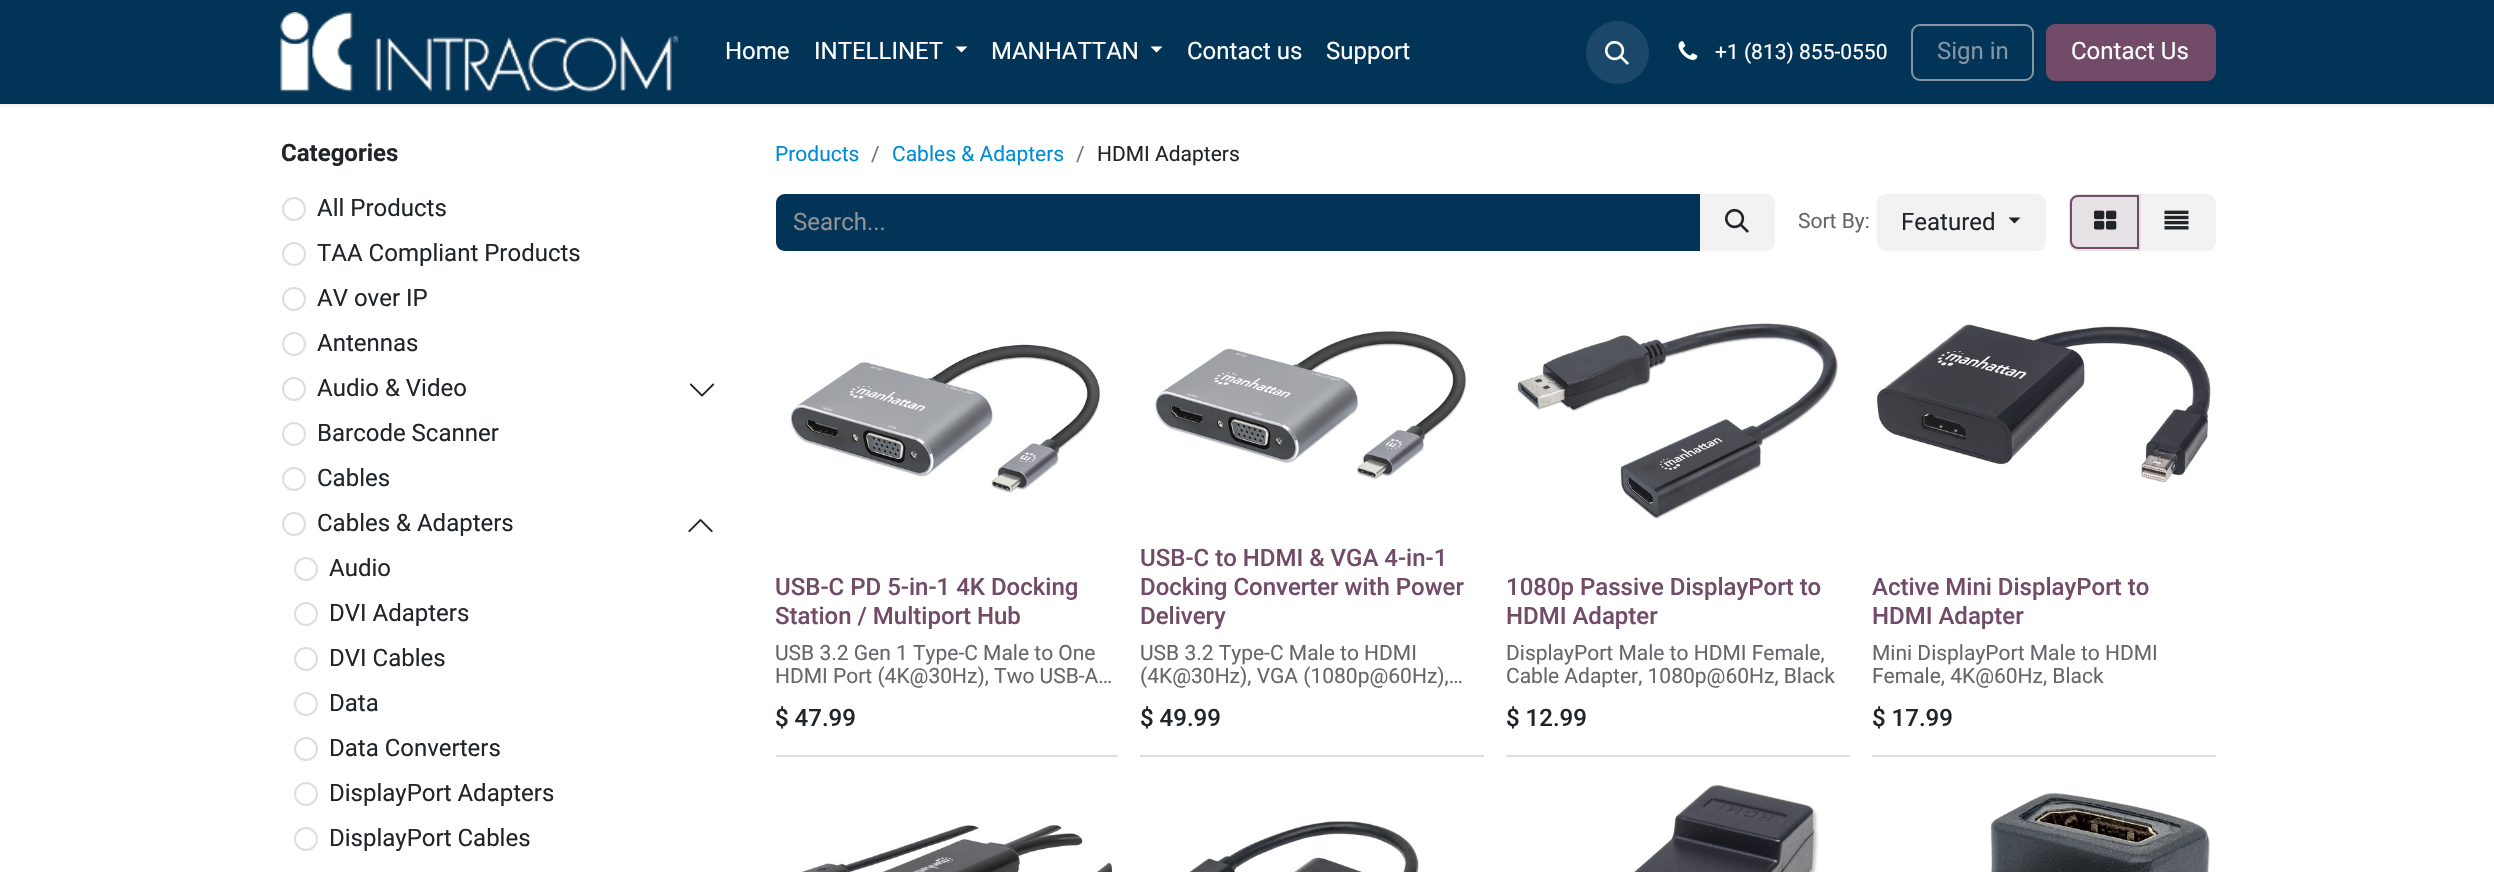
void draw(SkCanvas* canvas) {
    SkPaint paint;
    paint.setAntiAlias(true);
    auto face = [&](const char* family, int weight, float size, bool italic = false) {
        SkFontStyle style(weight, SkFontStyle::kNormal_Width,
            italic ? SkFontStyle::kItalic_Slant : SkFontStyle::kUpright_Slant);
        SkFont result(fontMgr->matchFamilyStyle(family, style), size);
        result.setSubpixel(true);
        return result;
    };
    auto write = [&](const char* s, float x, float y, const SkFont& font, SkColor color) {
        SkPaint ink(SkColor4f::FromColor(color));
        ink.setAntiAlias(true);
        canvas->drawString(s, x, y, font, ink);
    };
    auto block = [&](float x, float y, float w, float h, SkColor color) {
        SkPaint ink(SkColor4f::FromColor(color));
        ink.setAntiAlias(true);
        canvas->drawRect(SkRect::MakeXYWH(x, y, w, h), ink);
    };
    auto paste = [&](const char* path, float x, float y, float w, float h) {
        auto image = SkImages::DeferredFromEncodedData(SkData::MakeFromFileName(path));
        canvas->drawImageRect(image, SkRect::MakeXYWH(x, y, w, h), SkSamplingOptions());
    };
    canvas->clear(SK_ColorWHITE);
    paint.setColor(SkColorSetARGB(26, 0, 0, 0));
    paint.setMaskFilter(SkMaskFilter::MakeBlur(kNormal_SkBlurStyle, 2));
    canvas->drawRect(SkRect::MakeXYWH(0, 2, 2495, 103), paint);
    paint.setMaskFilter(nullptr);
    block(0, 0, 2494, 104, SkColorSetRGB(2, 52, 88));
    paste("pic1.png", 280, 12, 398, 80);
    auto kFont1 = face("Roboto", 400, 24);
    write("Home", 725, 59, kFont1, SK_ColorWHITE);
    write("INTELLINET", 814, 59, kFont1, SK_ColorWHITE);
    paint.setColor(SK_ColorWHITE);
    canvas->drawPath(SkPathBuilder().moveTo(955.5f, 46.5f).lineTo(967.5f, 46.5f).lineTo(961.5f, 52.5f).close().detach(), paint);
    write("MANHATTAN", 991, 59, kFont1, SK_ColorWHITE);
    canvas->drawPath(SkPathBuilder().moveTo(1150.5f, 46.5f).lineTo(1162.5f, 46.5f).lineTo(1156.5f, 52.5f).close().detach(), paint);
    write("Contact us", 1187, 59, kFont1, SK_ColorWHITE);
    write("Support", 1326, 59, kFont1, SK_ColorWHITE);
    paint.setColor(SkColorSetRGB(27, 72, 105));
    canvas->drawCircle(1617.5f, 52.5f, 31.5f, paint);
    paste("pic2.png", 1605, 40, 24, 25);
    paste("pic3.png", 1678, 41, 20, 19);
    auto kFont2 = face("Roboto", 400, 21);
    write("+1 (813) 855-0550", 1715, 59, kFont2, SK_ColorWHITE);
    paint.setStyle(SkPaint::kStroke_Style);
    paint.setStrokeWidth(2);
    paint.setColor(SkColorSetRGB(133, 149, 162));
    canvas->drawRoundRect(SkRect::MakeXYWH(1912, 25, 121, 55), 8, 8, paint);
    write("Sign in", 1937, 59, kFont1, SkColorSetRGB(133, 149, 162));
    paint.setStyle(SkPaint::kFill_Style);
    paint.setColor(SkColorSetRGB(113, 75, 103));
    canvas->drawRoundRect(SkRect::MakeXYWH(2047, 25, 168, 55), 8, 8, paint);
    paint.setStyle(SkPaint::kStroke_Style);
    canvas->drawRoundRect(SkRect::MakeXYWH(2047, 25, 168, 55), 8, 8, paint);
    write("Contact Us", 2071, 59, kFont1, SK_ColorWHITE);
    auto kFont3 = face("Roboto", 700, 24);
    write("Categories", 281, 161, kFont3, SkColorSetRGB(33, 37, 41));
    paint.setColor(SkColorSetRGB(222, 222, 223));
    canvas->drawCircle(294, 209, 11, paint);
    write("All Products", 317, 216, kFont1, SkColorSetRGB(33, 37, 41));
    canvas->drawCircle(294, 254, 11, paint);
    write("TAA Compliant Products", 317, 261, kFont1, SkColorSetRGB(33, 37, 41));
    canvas->drawCircle(294, 299, 11, paint);
    write("AV over IP", 317, 306, kFont1, SkColorSetRGB(33, 37, 41));
    canvas->drawCircle(294, 344, 11, paint);
    write("Antennas", 317, 351, kFont1, SkColorSetRGB(33, 37, 41));
    canvas->drawCircle(294, 389, 11, paint);
    write("Audio & Video", 317, 396, kFont1, SkColorSetRGB(33, 37, 41));
    paste("pic4.png", 689, 383, 26, 14);
    canvas->drawCircle(294, 434, 11, paint);
    write("Barcode Scanner", 317, 441, kFont1, SkColorSetRGB(33, 37, 41));
    canvas->drawCircle(294, 479, 11, paint);
    write("Cables", 317, 486, kFont1, SkColorSetRGB(33, 37, 41));
    canvas->drawCircle(294, 524, 11, paint);
    write("Cables & Adapters", 317, 531, kFont1, SkColorSetRGB(33, 37, 41));
    paste("pic5.png", 688, 519, 25, 14);
    canvas->drawCircle(306, 569, 11, paint);
    write("Audio", 329, 576, kFont1, SkColorSetRGB(33, 37, 41));
    canvas->drawCircle(306, 614, 11, paint);
    write("DVI Adapters", 329, 621, kFont1, SkColorSetRGB(33, 37, 41));
    canvas->drawCircle(306, 659, 11, paint);
    write("DVI Cables", 329, 666, kFont1, SkColorSetRGB(33, 37, 41));
    canvas->drawCircle(306, 704, 11, paint);
    write("Data", 329, 711, kFont1, SkColorSetRGB(33, 37, 41));
    canvas->drawCircle(306, 749, 11, paint);
    write("Data Converters", 329, 756, kFont1, SkColorSetRGB(33, 37, 41));
    canvas->drawCircle(306, 794, 11, paint);
    write("DisplayPort Adapters", 329, 801, kFont1, SkColorSetRGB(33, 37, 41));
    canvas->drawCircle(306, 839, 11, paint);
    write("DisplayPort Cables", 329, 846, kFont1, SkColorSetRGB(33, 37, 41));
    write("Products", 775, 161, kFont2, SkColorSetRGB(0, 139, 214));
    write("/", 871, 161, kFont2, SkColorSetRGB(108, 117, 125));
    write("Cables & Adapters", 892, 161, kFont2, SkColorSetRGB(0, 139, 214));
    write("/", 1076, 161, kFont2, SkColorSetRGB(108, 117, 125));
    write("HDMI Adapters", 1097, 161, kFont2, SkColorSetRGB(33, 37, 41));
    paint.setStyle(SkPaint::kFill_Style);
    paint.setColor(SkColorSetRGB(2, 52, 88));
    canvas->drawPath(SkPathBuilder().moveTo(785, 194).lineTo(1701, 194).lineTo(1701, 251).lineTo(785, 251).cubicTo(780, 251, 776, 247, 776, 242).lineTo(776, 203).cubicTo(776, 198, 780, 194, 785, 194).close().detach(), paint);
    write("Search...", 793, 230, kFont1, SkColorSetRGB(144, 146, 148));
    paint.setColor(SkColorSetRGB(243, 242, 242));
    canvas->drawPath(SkPathBuilder().moveTo(1701, 195).lineTo(1766, 195).cubicTo(1770.5f, 195, 1774, 198.5f, 1774, 203).lineTo(1774, 242).cubicTo(1774, 246.5f, 1770.5f, 250, 1766, 250).lineTo(1701, 250).close().detach(), paint);
    paint.setStyle(SkPaint::kStroke_Style);
    canvas->drawPath(SkPathBuilder().moveTo(1701, 195).lineTo(1766, 195).cubicTo(1770.5f, 195, 1774, 198.5f, 1774, 203).lineTo(1774, 242).cubicTo(1774, 246.5f, 1770.5f, 250, 1766, 250).lineTo(1701, 250).close().detach(), paint);
    paste("pic6.png", 1725, 208, 24, 25);
    write("Sort By:", 1798, 228, kFont2, SkColorSetRGB(100, 102, 105));
    paint.setStyle(SkPaint::kFill_Style);
    canvas->drawRoundRect(SkRect::MakeXYWH(1878, 195, 167, 55), 8, 8, paint);
    paint.setStyle(SkPaint::kStroke_Style);
    canvas->drawRoundRect(SkRect::MakeXYWH(1878, 195, 167, 55), 8, 8, paint);
    write("Featured", 1901, 230, kFont1, SkColorSetRGB(33, 37, 41));
    paint.setStyle(SkPaint::kFill_Style);
    paint.setColor(SkColorSetRGB(33, 37, 41));
    canvas->drawPath(SkPathBuilder().moveTo(2008.5f, 217.5f).lineTo(2020.5f, 217.5f).lineTo(2014.5f, 223.5f).close().detach(), paint);
    paint.setColor(SkColorSetRGB(243, 242, 242));
    canvas->drawPath(SkPathBuilder().moveTo(2140, 195).lineTo(2207, 195).cubicTo(2211.5f, 195, 2215, 198.5f, 2215, 203).lineTo(2215, 242).cubicTo(2215, 246.5f, 2211.5f, 250, 2207, 250).lineTo(2140, 250).close().detach(), paint);
    paint.setStyle(SkPaint::kStroke_Style);
    canvas->drawPath(SkPathBuilder().moveTo(2140, 195).lineTo(2207, 195).cubicTo(2211.5f, 195, 2215, 198.5f, 2215, 203).lineTo(2215, 242).cubicTo(2215, 246.5f, 2211.5f, 250, 2207, 250).lineTo(2140, 250).close().detach(), paint);
    paint.setStyle(SkPaint::kFill_Style);
    paint.setColor(SkColorSetRGB(230, 225, 228));
    canvas->drawPath(SkPathBuilder().moveTo(2078, 194).lineTo(2141, 194).lineTo(2141, 251).lineTo(2078, 251).cubicTo(2073, 251, 2069, 247, 2069, 242).lineTo(2069, 203).cubicTo(2069, 198, 2073, 194, 2078, 194).close().detach(), paint);
    paint.setStyle(SkPaint::kStroke_Style);
    paint.setColor(SkColorSetRGB(113, 75, 103));
    canvas->drawPath(SkPathBuilder().moveTo(2078, 196).lineTo(2138, 196).lineTo(2138, 248).lineTo(2078, 248).cubicTo(2074, 248, 2071, 245, 2071, 241).lineTo(2071, 203).cubicTo(2071, 199, 2074, 196, 2078, 196).close().detach(), paint);
    paste("pic7.png", 2094, 210, 23, 20);
    paste("pic8.png", 2164, 210, 25, 20);
    block(776, 755, 342, 2, SkColorSetRGB(222, 222, 223));
    paste("pic9.png", 790, 344, 311, 149);
    auto kFont4 = face("Roboto", 500, 24);
    write("USB-C PD 5-in-1 4K Docking", 775, 595, kFont4, SkColorSetRGB(113, 75, 103));
    write("Station / Multiport Hub", 775, 624, kFont4, SkColorSetRGB(113, 75, 103));
    write("USB 3.2 Gen 1 Type-C Male to One", 775, 660, kFont2, SkColorSetRGB(100, 102, 105));
    write("HDMI Port (4K@30Hz), Two USB-A…", 775, 683, kFont2, SkColorSetRGB(100, 102, 105));
    write("$ 47.99", 775, 726, kFont4, SkColorSetRGB(33, 37, 41));
    block(1140, 755, 344, 2, SkColorSetRGB(222, 222, 223));
    paste("pic10.png", 1155, 331, 312, 149);
    write("USB-C to HDMI & VGA 4-in-1", 1140, 566, kFont4, SkColorSetRGB(113, 75, 103));
    write("Docking Converter with Power", 1140, 595, kFont4, SkColorSetRGB(113, 75, 103));
    write("Delivery", 1140, 624, kFont4, SkColorSetRGB(113, 75, 103));
    write("USB 3.2 Type-C Male to HDMI", 1140, 660, kFont2, SkColorSetRGB(100, 102, 105));
    write("(4K@30Hz), VGA (1080p@60Hz),…", 1140, 683, kFont2, SkColorSetRGB(100, 102, 105));
    write("$ 49.99", 1140, 726, kFont4, SkColorSetRGB(33, 37, 41));
    block(1506, 755, 344, 2, SkColorSetRGB(222, 222, 223));
    paste("pic11.png", 1517, 322, 321, 197);
    write("1080p Passive DisplayPort to", 1506, 595, kFont4, SkColorSetRGB(113, 75, 103));
    write("HDMI Adapter", 1506, 624, kFont4, SkColorSetRGB(113, 75, 103));
    write("DisplayPort Male to HDMI Female,", 1506, 660, kFont2, SkColorSetRGB(100, 102, 105));
    write("Cable Adapter, 1080p@60Hz, Black", 1506, 683, kFont2, SkColorSetRGB(100, 102, 105));
    write("$ 12.99", 1506, 726, kFont4, SkColorSetRGB(33, 37, 41));
    block(1872, 755, 344, 2, SkColorSetRGB(222, 222, 223));
    paste("pic12.png", 1876, 324, 335, 159);
    write("Active Mini DisplayPort to", 1872, 595, kFont4, SkColorSetRGB(113, 75, 103));
    write("HDMI Adapter", 1872, 624, kFont4, SkColorSetRGB(113, 75, 103));
    write("Mini DisplayPort Male to HDMI", 1872, 660, kFont2, SkColorSetRGB(100, 102, 105));
    write("Female, 4K@60Hz, Black", 1872, 683, kFont2, SkColorSetRGB(100, 102, 105));
    write("$ 17.99", 1872, 726, kFont4, SkColorSetRGB(33, 37, 41));
    paste("pic13.png", 801, 824, 312, 48);
    paste("pic14.png", 1189, 821, 230, 51);
    paste("pic15.png", 1634, 784, 185, 88);
    paste("pic16.png", 1990, 792, 220, 80);
}
